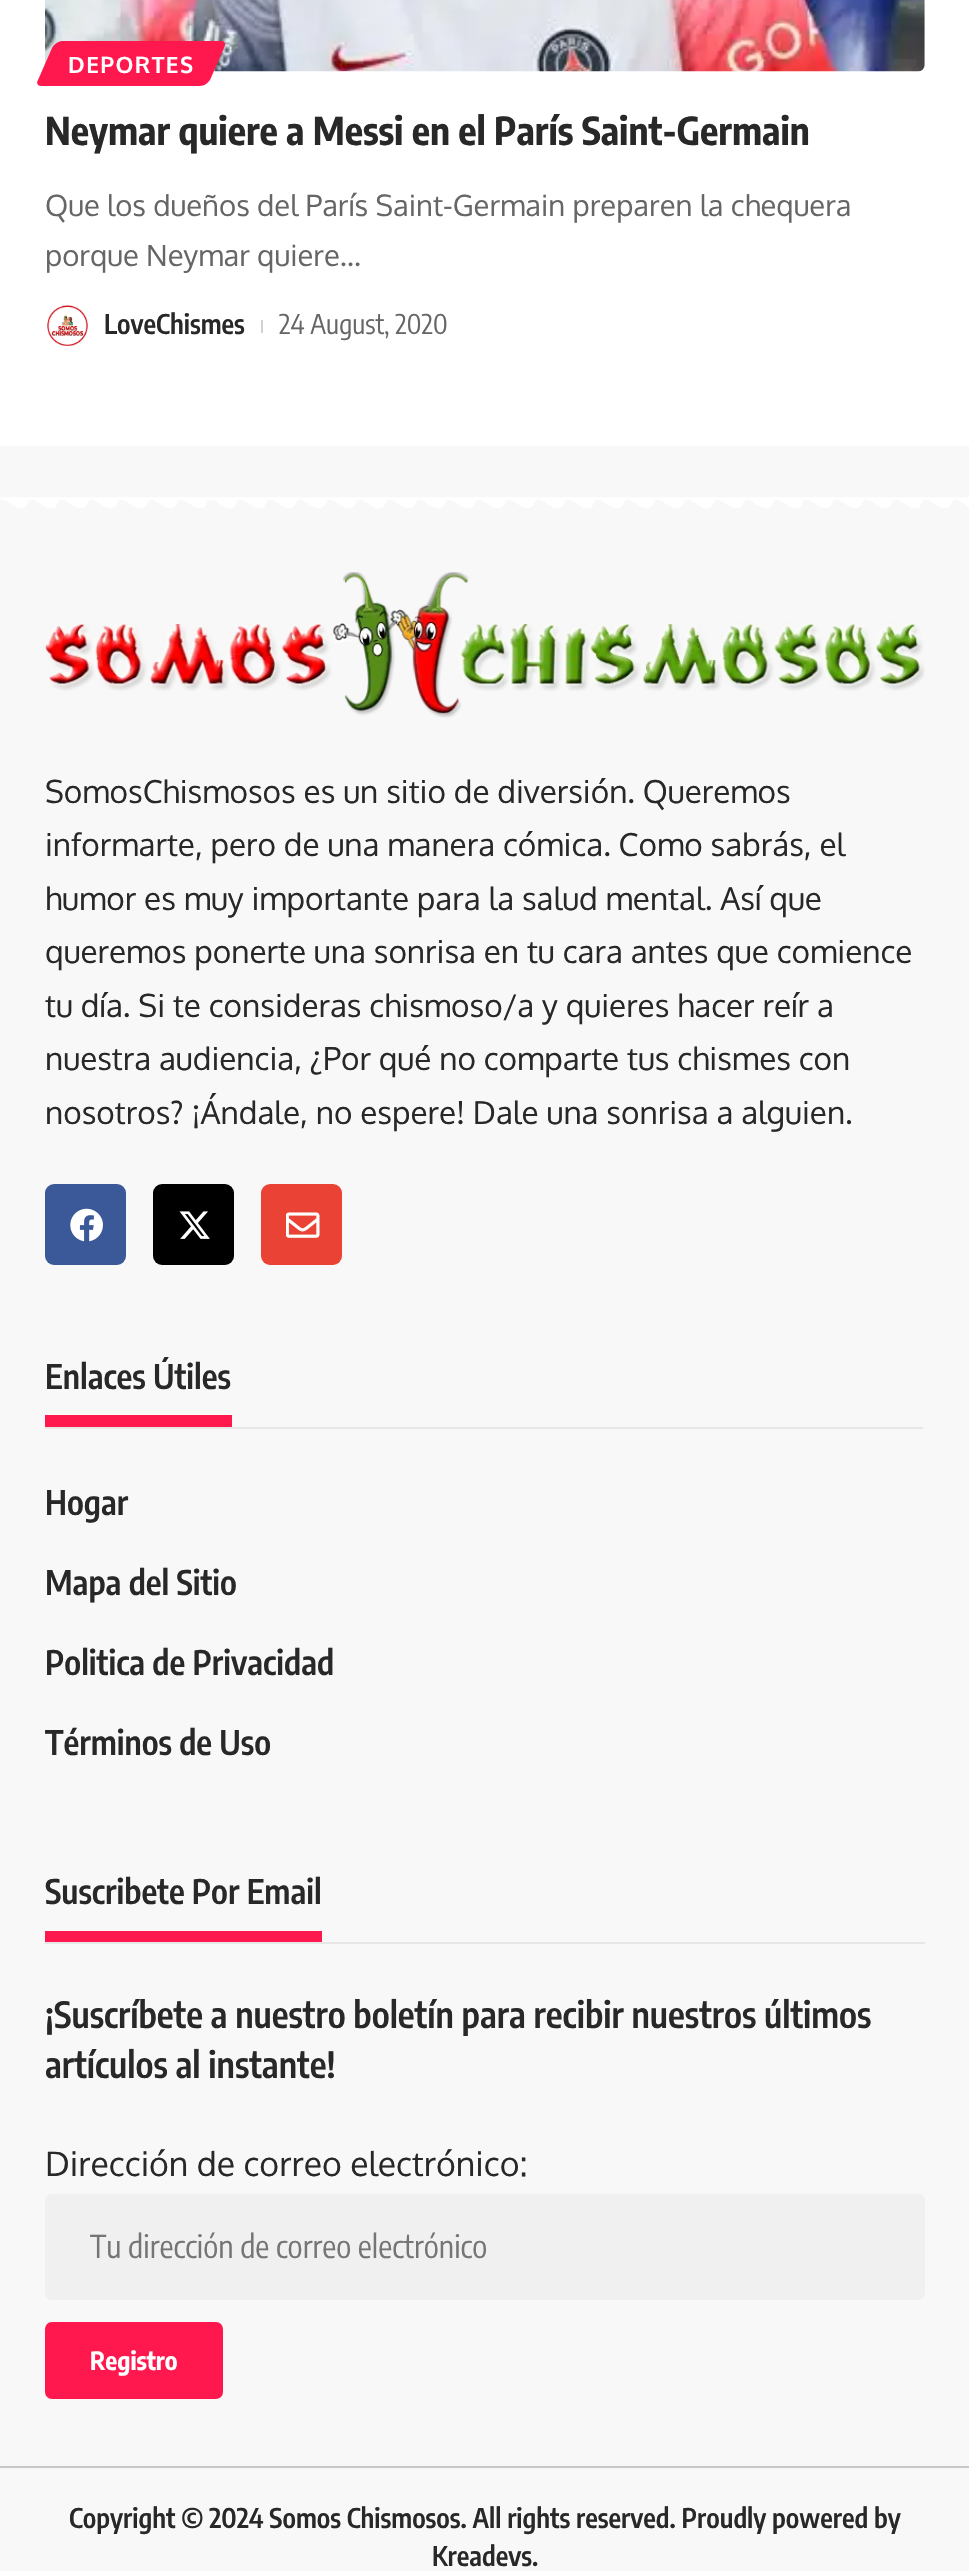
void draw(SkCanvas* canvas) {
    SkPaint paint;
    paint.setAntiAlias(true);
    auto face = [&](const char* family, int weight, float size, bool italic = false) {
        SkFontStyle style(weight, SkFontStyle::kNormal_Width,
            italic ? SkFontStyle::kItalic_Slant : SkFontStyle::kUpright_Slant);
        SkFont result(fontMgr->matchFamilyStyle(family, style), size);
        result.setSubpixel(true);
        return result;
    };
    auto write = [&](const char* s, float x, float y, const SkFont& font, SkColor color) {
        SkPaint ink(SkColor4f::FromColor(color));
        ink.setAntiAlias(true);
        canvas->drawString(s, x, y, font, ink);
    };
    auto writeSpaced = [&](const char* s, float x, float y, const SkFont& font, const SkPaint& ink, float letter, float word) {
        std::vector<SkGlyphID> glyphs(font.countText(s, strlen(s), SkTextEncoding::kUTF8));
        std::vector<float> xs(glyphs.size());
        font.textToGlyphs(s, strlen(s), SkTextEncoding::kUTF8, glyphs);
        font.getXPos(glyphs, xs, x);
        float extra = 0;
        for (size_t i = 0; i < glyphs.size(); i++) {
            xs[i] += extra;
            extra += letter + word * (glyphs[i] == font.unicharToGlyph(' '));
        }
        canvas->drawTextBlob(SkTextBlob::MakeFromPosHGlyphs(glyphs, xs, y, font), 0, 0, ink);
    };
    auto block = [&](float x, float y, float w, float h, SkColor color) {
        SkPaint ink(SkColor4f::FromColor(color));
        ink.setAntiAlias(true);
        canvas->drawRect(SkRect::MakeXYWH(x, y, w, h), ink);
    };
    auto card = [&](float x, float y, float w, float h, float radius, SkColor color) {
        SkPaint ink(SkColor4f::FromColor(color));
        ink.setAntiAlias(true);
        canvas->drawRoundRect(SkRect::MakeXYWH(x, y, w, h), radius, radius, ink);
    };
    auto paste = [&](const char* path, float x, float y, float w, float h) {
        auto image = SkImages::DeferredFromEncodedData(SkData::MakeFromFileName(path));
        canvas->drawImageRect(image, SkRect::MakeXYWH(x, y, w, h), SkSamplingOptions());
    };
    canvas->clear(SK_ColorWHITE);
    paste("pic1.png", 45, 0, 880, 72);
    paint.setColor(SkColorSetRGB(255, 24, 78));
    canvas->drawPath(SkPathBuilder().moveTo(62, 41).lineTo(221, 41).cubicTo(225, 41, 226, 44, 224, 48).lineTo(210, 80).cubicTo(208, 83, 204, 86, 200, 86).lineTo(41, 86).cubicTo(38, 86, 36, 83, 38, 80).lineTo(52, 48).cubicTo(54, 44, 59, 41, 62, 41).close().detach(), paint);
    auto kFont1 = face("Oxygen", 700, 22.5f);
    paint.setColor(SK_ColorWHITE);
    writeSpaced("DEPORTES", 68, 73, kFont1, paint, 1.5f, 0);
    auto kFont2 = face("Encode Sans Condensed", 700, 38.25f);
    write("Neymar quiere a Messi en el París Saint-Germain", 45, 145, kFont2, SkColorSetRGB(40, 40, 40));
    auto kFont3 = face("Oxygen", 400, 29.25f);
    write("Que los dueños del París Saint-Germain preparen la chequera", 45, 216, kFont3, SkColorSetRGB(102, 102, 102));
    write("porque Neymar quiere…", 45, 266, kFont3, SkColorSetRGB(102, 102, 102));
    paste("pic2.png", 47, 305, 41, 42);
    auto kFont4 = face("Encode Sans Condensed", 600, 27);
    write("LoveChismes", 104, 334, kFont4, SkColorSetRGB(40, 40, 40));
    block(261, 320, 2, 13, SkColorSetRGB(209, 209, 209));
    auto kFont5 = face("Encode Sans Condensed", 400, 27);
    write("24 August, 2020", 279, 334, kFont5, SkColorSetRGB(102, 102, 102));
    block(0, 446, 969, 2020, SkColorSetRGB(248, 248, 248));
    paste("pic3.png", 0, 497, 969, 11);
    paste("pic4.png", 45, 572, 880, 146);
    auto kFont6 = face("Oxygen", 400, 31.5f);
    write("SomosChismosos es un sitio de diversión. Queremos", 45, 803, kFont6, SkColorSetRGB(40, 40, 40));
    write("informarte, pero de una manera cómica. Como sabrás, el", 45, 856, kFont6, SkColorSetRGB(40, 40, 40));
    write("humor es muy importante para la salud mental. Así que", 45, 910, kFont6, SkColorSetRGB(40, 40, 40));
    write("queremos ponerte una sonrisa en tu cara antes que comience", 45, 963, kFont6, SkColorSetRGB(40, 40, 40));
    write("tu día. Si te consideras chismoso/a y quieres hacer reír a", 45, 1017, kFont6, SkColorSetRGB(40, 40, 40));
    write("nuestra audiencia, ¿Por qué no comparte tus chismes con", 45, 1070, kFont6, SkColorSetRGB(40, 40, 40));
    write("nosotros? ¡Ándale, no espere! Dale una sonrisa a alguien.", 45, 1124, kFont6, SkColorSetRGB(40, 40, 40));
    card(45, 1184, 81, 81, 9, SkColorSetRGB(59, 89, 152));
    paste("pic5.png", 70, 1208, 33, 34);
    card(153, 1184, 81, 81, 9, SK_ColorBLACK);
    paste("pic6.png", 179, 1211, 31, 28);
    card(261, 1184, 81, 81, 9, SkColorSetRGB(234, 67, 53));
    paste("pic7.png", 286, 1212, 34, 26);
    block(45, 1427, 878, 2, SkColorSetRGB(231, 231, 231));
    block(45, 1415, 187, 12, SkColorSetRGB(255, 24, 78));
    auto kFont7 = face("Encode Sans Condensed", 600, 33.75f);
    write("Enlaces Útiles", 45, 1389, kFont7, SkColorSetRGB(40, 40, 40));
    write("Hogar", 45, 1515, kFont7, SkColorSetRGB(40, 40, 40));
    write("Mapa del Sitio", 45, 1595, kFont7, SkColorSetRGB(40, 40, 40));
    write("Politica de Privacidad", 45, 1675, kFont7, SkColorSetRGB(40, 40, 40));
    write("Términos de Uso", 45, 1755, kFont7, SkColorSetRGB(40, 40, 40));
    block(45, 1942, 880, 2, SkColorSetRGB(231, 231, 231));
    block(45, 1931, 277, 11, SkColorSetRGB(255, 24, 78));
    write("Suscribete Por Email", 45, 1904, kFont7, SkColorSetRGB(40, 40, 40));
    auto kFont8 = face("Encode Sans Condensed", 600, 36);
    write("¡Suscríbete a nuestro boletín para recibir nuestros últimos", 45, 2028, kFont8, SkColorSetRGB(40, 40, 40));
    write("artículos al instante!", 45, 2078, kFont8, SkColorSetRGB(40, 40, 40));
    auto kFont9 = face("Oxygen", 400, 33.75f);
    write("Dirección de correo electrónico:", 45, 2176, kFont9, SkColorSetRGB(40, 40, 40));
    card(45, 2194, 880, 106, 7, SkColorSetRGB(240, 240, 240));
    auto kFont10 = face("Encode Sans Condensed", 400, 31.5f);
    write("Tu dirección de correo electrónico", 90, 2258, kFont10, SkColorSetRGB(117, 117, 117));
    card(45, 2322, 178, 77, 7, SkColorSetRGB(255, 24, 78));
    auto kFont11 = face("Encode Sans Condensed", 700, 25);
    write("Registro", 90, 2370, kFont11, SK_ColorWHITE);
    block(0, 2468, 969, 103, SkColorSetRGB(248, 248, 248));
    block(0, 2466, 969, 2, SkColorSetRGB(200, 200, 200));
    write("Copyright © 2024 Somos Chismosos. All rights reserved. Proudly powered by", 69, 2528, kFont4, SkColorSetRGB(40, 40, 40));
    write("Kreadevs.", 432, 2566, kFont4, SkColorSetRGB(40, 40, 40));
}
